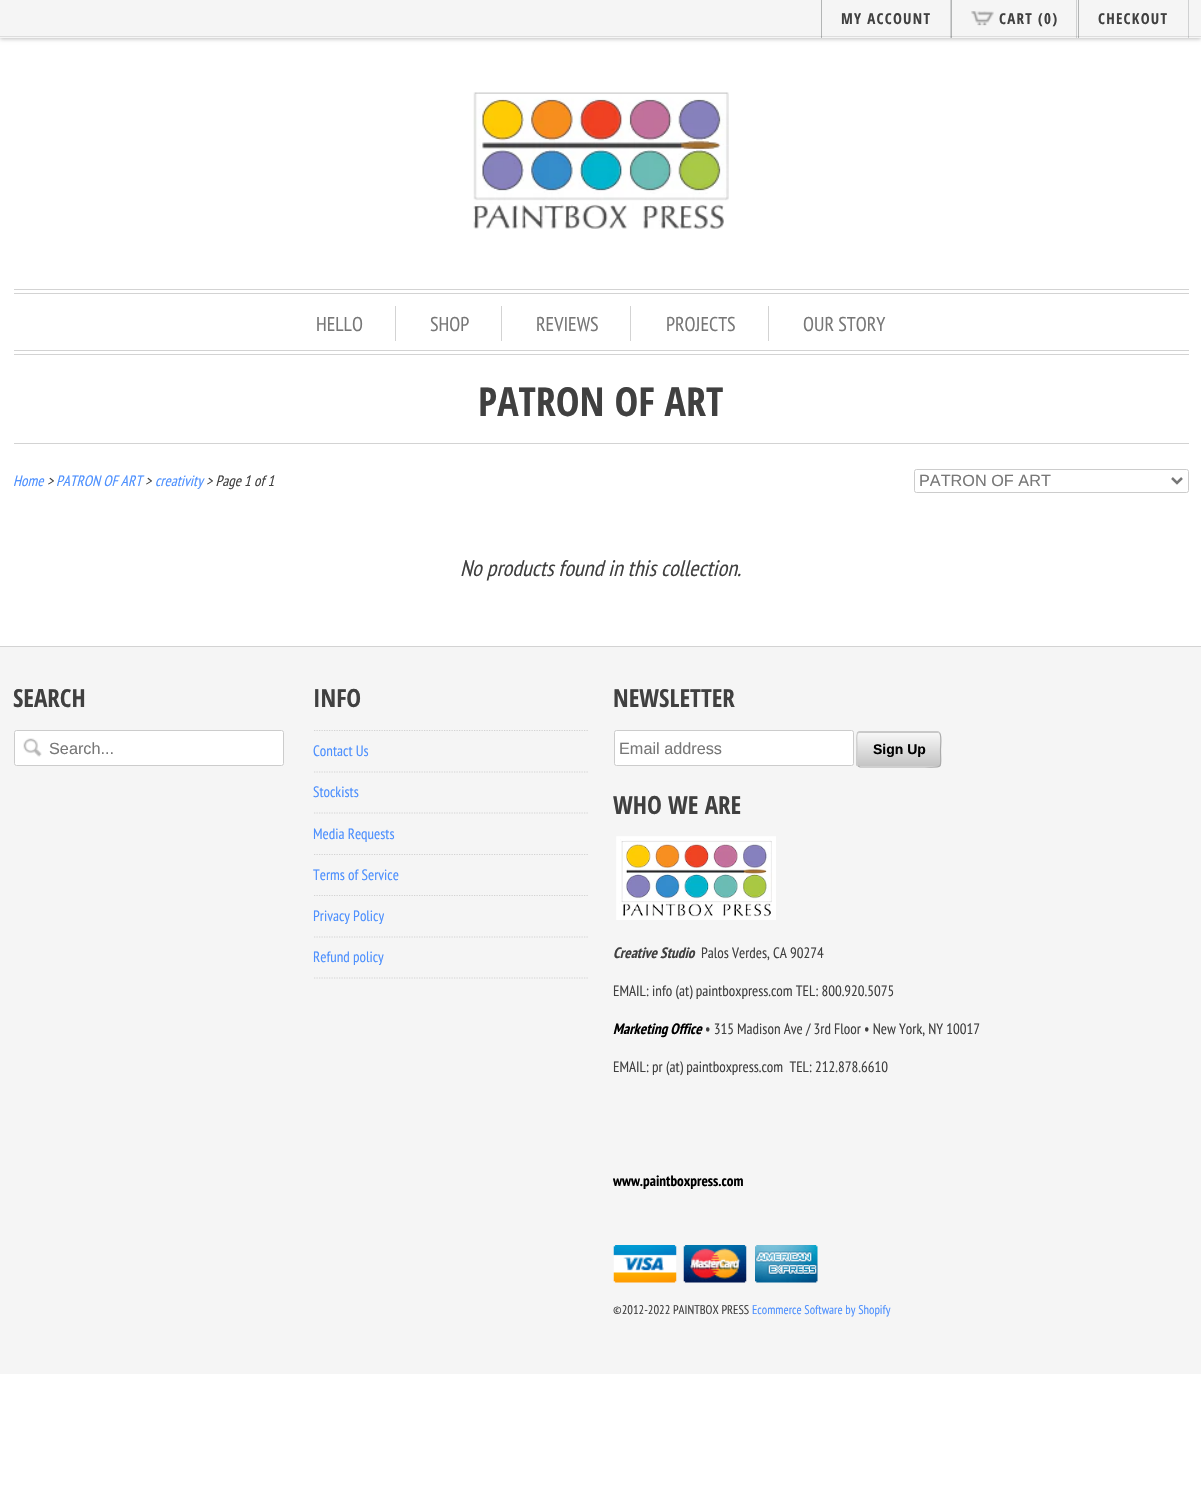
void draw(SkCanvas* canvas) {
    SkPaint paint;
    paint.setAntiAlias(true);
    auto face = [&](const char* family, int weight, float size, bool italic = false) {
        SkFontStyle style(weight, SkFontStyle::kNormal_Width,
            italic ? SkFontStyle::kItalic_Slant : SkFontStyle::kUpright_Slant);
        SkFont result(fontMgr->matchFamilyStyle(family, style), size);
        result.setSubpixel(true);
        return result;
    };
    auto write = [&](const char* s, float x, float y, const SkFont& font, SkColor color) {
        SkPaint ink(SkColor4f::FromColor(color));
        ink.setAntiAlias(true);
        canvas->drawString(s, x, y, font, ink);
    };
    auto writeSpaced = [&](const char* s, float x, float y, const SkFont& font, const SkPaint& ink, float letter, float word) {
        std::vector<SkGlyphID> glyphs(font.countText(s, strlen(s), SkTextEncoding::kUTF8));
        std::vector<float> xs(glyphs.size());
        font.textToGlyphs(s, strlen(s), SkTextEncoding::kUTF8, glyphs);
        font.getXPos(glyphs, xs, x);
        float extra = 0;
        for (size_t i = 0; i < glyphs.size(); i++) {
            xs[i] += extra;
            extra += letter + word * (glyphs[i] == font.unicharToGlyph(' '));
        }
        canvas->drawTextBlob(SkTextBlob::MakeFromPosHGlyphs(glyphs, xs, y, font), 0, 0, ink);
    };
    auto block = [&](float x, float y, float w, float h, SkColor color) {
        SkPaint ink(SkColor4f::FromColor(color));
        ink.setAntiAlias(true);
        canvas->drawRect(SkRect::MakeXYWH(x, y, w, h), ink);
    };
    auto card = [&](float x, float y, float w, float h, float radius, SkColor color) {
        SkPaint ink(SkColor4f::FromColor(color));
        ink.setAntiAlias(true);
        canvas->drawRoundRect(SkRect::MakeXYWH(x, y, w, h), radius, radius, ink);
    };
    auto paste = [&](const char* path, float x, float y, float w, float h) {
        auto image = SkImages::DeferredFromEncodedData(SkData::MakeFromFileName(path));
        canvas->drawImageRect(image, SkRect::MakeXYWH(x, y, w, h), SkSamplingOptions());
    };
    canvas->clear(SK_ColorWHITE);
    paint.setColor(SkColorSetARGB(64, 0, 0, 0));
    paint.setMaskFilter(SkMaskFilter::MakeBlur(kNormal_SkBlurStyle, 2));
    canvas->drawRect(SkRect::MakeXYWH(0, 1, 1201, 38), paint);
    paint.setMaskFilter(nullptr);
    block(0, 0, 1201, 38, SkColorSetRGB(245, 245, 245));
    block(0, 36, 1201, 1, SkColorSetRGB(221, 221, 221));
    block(950, 0, 1, 38, SkColorSetARGB(51, 58, 67, 68));
    block(821, 0, 1, 38, SkColorSetARGB(77, 27, 32, 34));
    auto kFont1 = face("Open Sans Condensed", 700, 15);
    paint.setColor(SkColorSetRGB(64, 64, 64));
    writeSpaced("MY ACCOUNT", 841, 24, kFont1, paint, 1.25f, 0);
    block(1076, 0, 1, 38, SkColorSetARGB(51, 58, 67, 68));
    block(951, 0, 1, 38, SkColorSetARGB(77, 27, 32, 34));
    paste("pic1.png", 971, 11, 23, 15);
    writeSpaced("CART (0)", 999, 24, kFont1, paint, 1.25f, 0);
    block(1188, 0, 1, 38, SkColorSetARGB(51, 58, 67, 68));
    block(1078, 0, 1, 38, SkColorSetARGB(77, 27, 32, 34));
    writeSpaced("CHECKOUT", 1098, 24, kFont1, paint, 1.25f, 0);
    paste("pic2.png", 473, 92, 256, 137);
    block(14, 289, 1175, 1, SkColorSetRGB(211, 211, 211));
    block(14, 293, 1175, 1, SkColorSetRGB(211, 211, 211));
    block(14, 350, 1175, 1, SkColorSetRGB(211, 211, 211));
    block(14, 354, 1175, 1, SkColorSetRGB(211, 211, 211));
    block(395, 306, 1, 35, SkColorSetRGB(211, 211, 211));
    auto kFont2 = face("PT Sans Narrow", 400, 20);
    write("HELLO", 316, 331, kFont2, SkColorSetRGB(119, 119, 119));
    block(501, 306, 1, 35, SkColorSetRGB(211, 211, 211));
    write("SHOP", 430, 331, kFont2, SkColorSetRGB(119, 119, 119));
    block(630, 306, 1, 35, SkColorSetRGB(211, 211, 211));
    write("REVIEWS", 536, 331, kFont2, SkColorSetRGB(119, 119, 119));
    block(768, 306, 1, 35, SkColorSetRGB(211, 211, 211));
    write("PROJECTS", 666, 331, kFont2, SkColorSetRGB(119, 119, 119));
    write("OUR STORY", 803, 331, kFont2, SkColorSetRGB(119, 119, 119));
    block(14, 443, 1175, 1, SkColorSetRGB(211, 211, 211));
    auto kFont3 = face("Open Sans Condensed", 700, 40);
    write("PATRON OF ART", 478, 416, kFont3, SkColorSetRGB(64, 64, 64));
    auto kFont4 = face("PT Sans Narrow", 400, 15, true);
    write("Home", 13, 486, kFont4, SkColorSetRGB(77, 144, 254));
    write(">", 47, 486, kFont4, SkColorSetRGB(64, 64, 64));
    write("PATRON OF ART", 56, 486, kFont4, SkColorSetRGB(77, 144, 254));
    write(">", 145, 486, kFont4, SkColorSetRGB(64, 64, 64));
    write("creativity", 155, 486, kFont4, SkColorSetRGB(77, 144, 254));
    write("> Page 1 of 1", 206, 486, kFont4, SkColorSetRGB(64, 64, 64));
    paint.setStyle(SkPaint::kStroke_Style);
    paint.setStrokeWidth(1);
    paint.setColor(SkColorSetRGB(204, 204, 204));
    canvas->drawRoundRect(SkRect::MakeXYWH(914.5f, 469.5f, 274, 23), 2, 2, paint);
    paint.setStrokeWidth(2.5f);
    paint.setColor(SkColorSetRGB(119, 119, 119));
    canvas->drawPath(SkPathBuilder().moveTo(1172, 478).lineTo(1177, 483).lineTo(1182, 478).detach(), paint);
    auto kFont5 = face("Liberation Sans", 400, 16.25f);
    write("PATRON OF ART", 919, 486, kFont5, SkColorSetRGB(119, 119, 119));
    auto kFont6 = face("PT Sans Narrow", 400, 22.5f, true);
    write("No products found in this collection.", 460, 576, kFont6, SkColorSetRGB(64, 64, 64));
    block(0, 647, 1201, 727, SkColorSetRGB(245, 245, 245));
    block(0, 646, 1201, 1, SkColorSetRGB(211, 211, 211));
    auto kFont7 = face("Open Sans Condensed", 700, 25);
    write("SEARCH", 13, 707, kFont7, SkColorSetRGB(64, 64, 64));
    card(14, 730, 270, 36, 2.5f, SK_ColorWHITE);
    paste("pic3.png", 23, 738, 19, 19);
    paint.setStrokeWidth(1);
    paint.setColor(SkColorSetRGB(204, 204, 204));
    canvas->drawRoundRect(SkRect::MakeXYWH(14.5f, 730.5f, 269, 35), 2, 2, paint);
    write("Search...", 49, 754, kFont5, SkColorSetRGB(119, 119, 119));
    write("INFO", 313, 707, kFont7, SkColorSetRGB(64, 64, 64));
    paint.setStrokeWidth(1.2f);
    paint.setColor(SkColorSetRGB(211, 211, 211));
    paint.setPathEffect(SkDashPathEffect::Make({{1.25f, 1.25f}}, 0));
    canvas->drawPath(SkPathBuilder().moveTo(314, 730.5f).lineTo(589, 730.5f).detach(), paint);
    paint.setPathEffect(nullptr);
    paint.setPathEffect(SkDashPathEffect::Make({{1.25f, 1.25f}}, 0));
    canvas->drawPath(SkPathBuilder().moveTo(314, 772).lineTo(589, 772).detach(), paint);
    paint.setPathEffect(nullptr);
    auto kFont8 = face("PT Sans Narrow", 400, 15);
    write("Contact Us", 313, 756, kFont8, SkColorSetRGB(77, 144, 254));
    paint.setPathEffect(SkDashPathEffect::Make({{1.25f, 1.25f}}, 0));
    canvas->drawPath(SkPathBuilder().moveTo(314, 813).lineTo(589, 813).detach(), paint);
    paint.setPathEffect(nullptr);
    write("Stockists", 313, 797, kFont8, SkColorSetRGB(77, 144, 254));
    paint.setPathEffect(SkDashPathEffect::Make({{1.25f, 1.25f}}, 0));
    canvas->drawPath(SkPathBuilder().moveTo(314, 854.5f).lineTo(589, 854.5f).detach(), paint);
    paint.setPathEffect(nullptr);
    write("Media Requests", 313, 839, kFont8, SkColorSetRGB(77, 144, 254));
    paint.setPathEffect(SkDashPathEffect::Make({{1.25f, 1.25f}}, 0));
    canvas->drawPath(SkPathBuilder().moveTo(314, 895.5f).lineTo(589, 895.5f).detach(), paint);
    paint.setPathEffect(nullptr);
    write("Terms of Service", 313, 880, kFont8, SkColorSetRGB(77, 144, 254));
    paint.setPathEffect(SkDashPathEffect::Make({{1.25f, 1.25f}}, 0));
    canvas->drawPath(SkPathBuilder().moveTo(314, 937).lineTo(589, 937).detach(), paint);
    paint.setPathEffect(nullptr);
    write("Privacy Policy", 313, 921, kFont8, SkColorSetRGB(77, 144, 254));
    paint.setPathEffect(SkDashPathEffect::Make({{1.25f, 1.25f}}, 0));
    canvas->drawPath(SkPathBuilder().moveTo(314, 978).lineTo(589, 978).detach(), paint);
    paint.setPathEffect(nullptr);
    write("Refund policy", 313, 962, kFont8, SkColorSetRGB(77, 144, 254));
    write("NEWSLETTER", 613, 707, kFont7, SkColorSetRGB(64, 64, 64));
    paint.setStyle(SkPaint::kFill_Style);
    paint.setColor(SK_ColorWHITE);
    canvas->drawRoundRect(SkRect::MakeXYWH(614.5f, 730.5f, 239, 35), 2, 2, paint);
    paint.setStyle(SkPaint::kStroke_Style);
    paint.setStrokeWidth(1);
    paint.setColor(SkColorSetRGB(204, 204, 204));
    canvas->drawRoundRect(SkRect::MakeXYWH(614.5f, 730.5f, 239, 35), 2, 2, paint);
    write("Email address", 619, 754, kFont5, SkColorSetRGB(119, 119, 119));
    canvas->save();
    canvas->clipPath(SkPathBuilder().moveTo(860, 731).lineTo(937, 731).cubicTo(939, 731, 941, 733, 941, 735).lineTo(941, 764).cubicTo(941, 766, 939, 768, 937, 768).lineTo(860, 768).cubicTo(858, 768, 856, 766, 856, 764).lineTo(856, 735).cubicTo(856, 733, 858, 731, 860, 731).close().detach(), true);
    paint.setStyle(SkPaint::kFill_Style);
    {
        const SkColor colors[] = {SkColorSetRGB(247, 247, 247), SkColorSetRGB(196, 196, 196)};
        const float stops[] = {0, 1};
        const SkPoint ends[] = {{899, 699}, {899, 733}};
        paint.setShader(SkGradientShader::MakeLinear(ends, colors, stops, 2, SkTileMode::kClamp));
        paint.setAlpha(255);
    }
    canvas->drawRect(SkRect::MakeXYWH(856, 731, 85, 2), paint);
    {
        const SkColor colors[] = {SkColorSetRGB(247, 247, 247), SkColorSetRGB(196, 196, 196)};
        const float stops[] = {0, 1};
        const SkPoint ends[] = {{899, 733}, {899, 766}};
        paint.setShader(SkGradientShader::MakeLinear(ends, colors, stops, 2, SkTileMode::kClamp));
        paint.setAlpha(255);
    }
    canvas->drawRect(SkRect::MakeXYWH(856, 733, 85, 33), paint);
    canvas->restore();
    paint.setStyle(SkPaint::kStroke_Style);
    paint.setStrokeWidth(1.2f);
    paint.setShader(nullptr);
    paint.setColor(SkColorSetRGB(170, 170, 170));
    canvas->drawPath(SkPathBuilder().moveTo(939.5f, 733).cubicTo(942, 735, 940.5f, 746.5f, 940.5f, 749.5f).cubicTo(940.5f, 769.5f, 944.5f, 767, 924.5f, 767).lineTo(860, 767).lineTo(858, 766).detach(), paint);
    paint.setColor(SkColorSetRGB(204, 204, 204));
    canvas->drawPath(SkPathBuilder().moveTo(858, 766).cubicTo(855.5f, 764, 857, 752.5f, 857, 749.5f).cubicTo(857, 729.5f, 853, 732, 873, 732).lineTo(937.5f, 732).lineTo(939.5f, 733).detach(), paint);
    auto kFont9 = face("Liberation Sans", 700, 14);
    write("Sign Up", 873, 754, kFont9, SK_ColorBLACK);
    write("WHO WE ARE", 613, 814, kFont7, SkColorSetRGB(64, 64, 64));
    paste("pic4.png", 616, 836, 160, 84);
    auto kFont10 = face("PT Sans Narrow", 700, 15, true);
    write("Creative Studio", 613, 958, kFont10, SkColorSetRGB(64, 64, 64));
    write("Palos Verdes, CA 90274", 701, 958, kFont8, SkColorSetRGB(64, 64, 64));
    write("EMAIL: info (at) paintboxpress.com TEL: 800.920.5075", 613, 996, kFont8, SkColorSetRGB(64, 64, 64));
    write("Marketing Office", 613, 1034, kFont10, SK_ColorBLACK);
    write("• 315 Madison Ave / 3rd Floor • New York, NY 10017", 705, 1034, kFont8, SkColorSetRGB(64, 64, 64));
    write("EMAIL: pr (at) paintboxpress.com  TEL: 212.878.6610", 613, 1072, kFont8, SkColorSetRGB(64, 64, 64));
    auto kFont11 = face("PT Sans Narrow", 700, 15);
    write("www.paintboxpress.com", 613, 1186, kFont11, SK_ColorBLACK);
    paste("pic5.png", 613, 1245, 64, 38);
    paste("pic6.png", 683, 1245, 64, 38);
    paste("pic7.png", 755, 1245, 63, 38);
    auto kFont12 = face("PT Sans Narrow", 400, 12.5f);
    write("©2012-2022 PAINTBOX PRESS", 613, 1314, kFont12, SkColorSetRGB(64, 64, 64));
    write("Ecommerce Software by Shopify", 752, 1314, kFont12, SkColorSetRGB(77, 144, 254));
}
